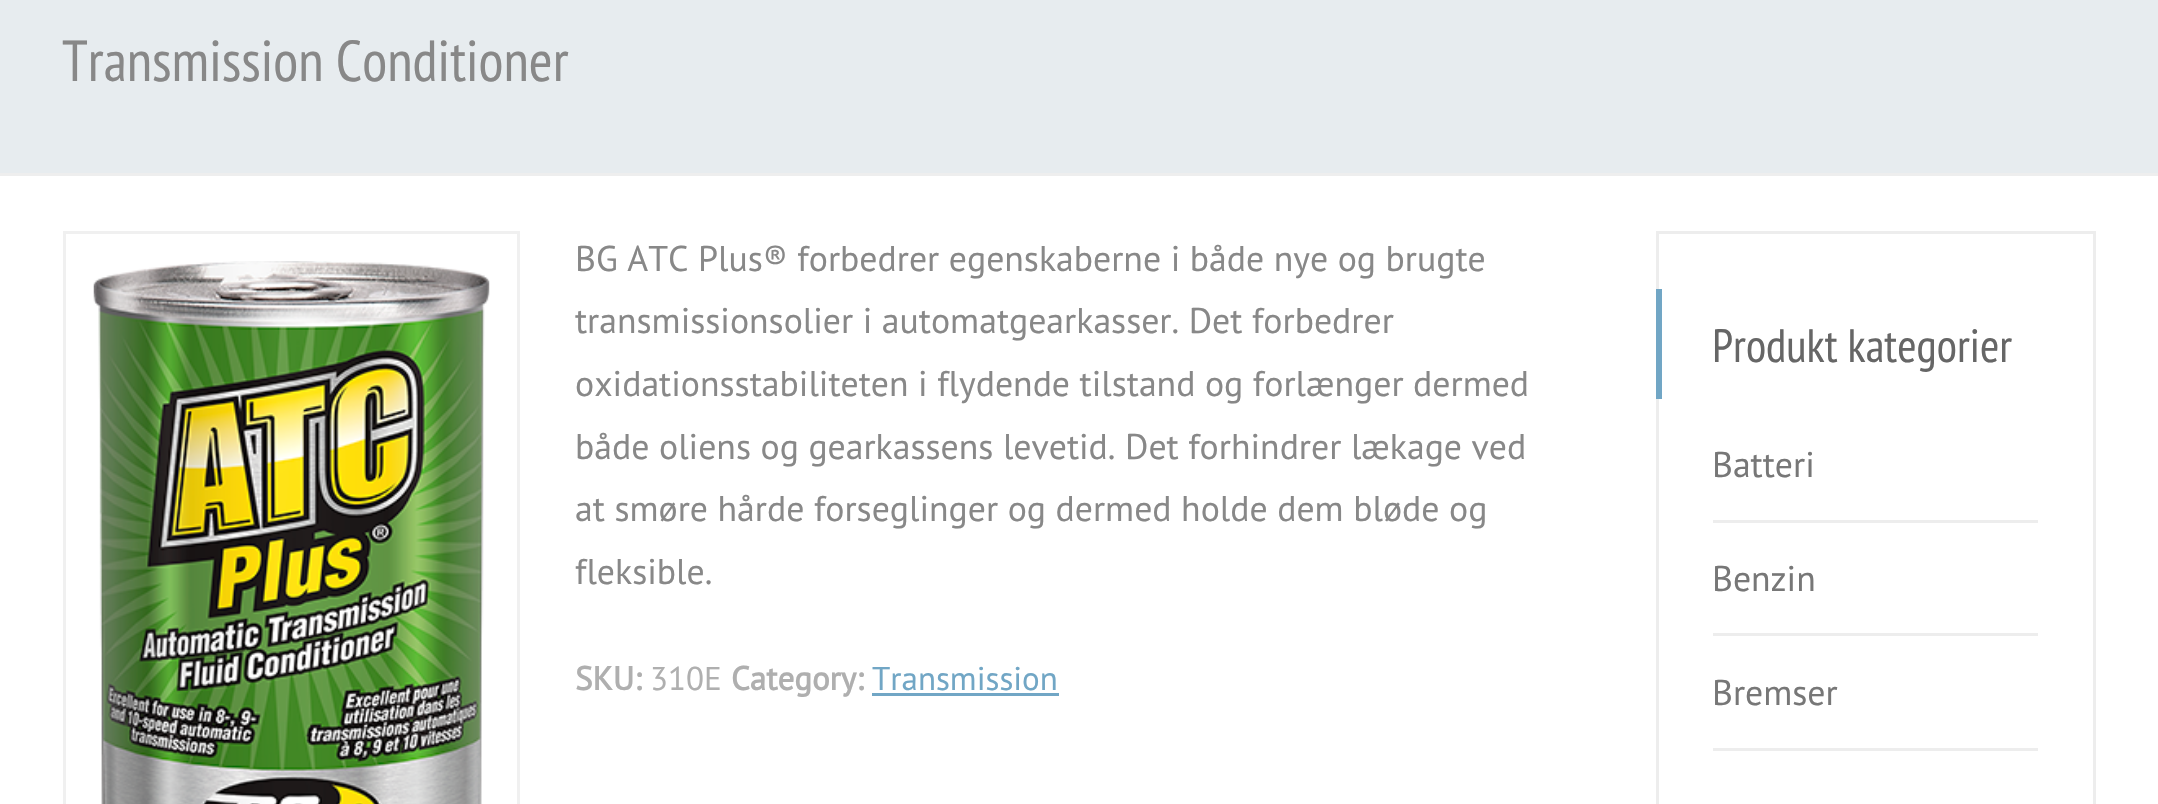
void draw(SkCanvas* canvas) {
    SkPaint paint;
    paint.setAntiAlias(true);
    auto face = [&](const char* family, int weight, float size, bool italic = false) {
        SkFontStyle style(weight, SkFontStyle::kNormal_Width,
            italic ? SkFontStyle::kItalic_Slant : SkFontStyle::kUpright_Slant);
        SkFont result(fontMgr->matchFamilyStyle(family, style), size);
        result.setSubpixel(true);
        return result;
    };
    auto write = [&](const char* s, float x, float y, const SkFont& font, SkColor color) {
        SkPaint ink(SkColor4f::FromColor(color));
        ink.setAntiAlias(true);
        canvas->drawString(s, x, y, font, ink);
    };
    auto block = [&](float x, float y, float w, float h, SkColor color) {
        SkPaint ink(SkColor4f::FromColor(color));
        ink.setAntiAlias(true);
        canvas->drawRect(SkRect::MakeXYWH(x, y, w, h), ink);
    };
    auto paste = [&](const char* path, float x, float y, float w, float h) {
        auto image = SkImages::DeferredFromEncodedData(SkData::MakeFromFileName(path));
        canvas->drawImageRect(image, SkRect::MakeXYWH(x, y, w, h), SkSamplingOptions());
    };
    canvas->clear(SK_ColorWHITE);
    block(0, 0, 2158, 173, SkColorSetRGB(231, 236, 239));
    block(0, 173, 2158, 3, SkColorSetRGB(238, 238, 238));
    auto kFont1 = face("PT Sans Narrow", 400, 57.75f);
    write("Transmission Conditioner", 62, 81, kFont1, SkColorSetRGB(136, 136, 136));
    paint.setStyle(SkPaint::kStroke_Style);
    paint.setStrokeWidth(3);
    paint.setColor(SkColorSetRGB(240, 240, 240));
    canvas->drawRect(SkRect::MakeXYWH(64.5f, 232.5f, 454, 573), paint);
    paste("pic1.png", 93, 261, 397, 543);
    auto kFont2 = face("PT Sans", 400, 35.75f);
    write("BG ATC Plus® forbedrer egenskaberne i både nye og brugte", 575, 271, kFont2, SkColorSetRGB(136, 136, 136));
    write("transmissionsolier i automatgearkasser. Det forbedrer", 575, 333, kFont2, SkColorSetRGB(136, 136, 136));
    write("oxidationsstabiliteten i flydende tilstand og forlænger dermed", 575, 396, kFont2, SkColorSetRGB(136, 136, 136));
    write("både oliens og gearkassens levetid. Det forhindrer lækage ved", 575, 459, kFont2, SkColorSetRGB(136, 136, 136));
    write("at smøre hårde forseglinger og dermed holde dem bløde og", 575, 521, kFont2, SkColorSetRGB(136, 136, 136));
    write("fleksible.", 575, 584, kFont2, SkColorSetRGB(136, 136, 136));
    auto kFont3 = face("PT Sans", 700, 33);
    write("SKU:", 575, 690, kFont3, SkColorSetRGB(175, 175, 175));
    auto kFont4 = face("PT Sans", 400, 33);
    write("310E", 650, 690, kFont4, SkColorSetRGB(175, 175, 175));
    write("Category:", 731, 690, kFont3, SkColorSetRGB(175, 175, 175));
    write("Transmission", 872, 690, kFont4, SkColorSetRGB(113, 166, 197));
    block(872, 693, 187, 3, SkColorSetRGB(113, 166, 197));
    paint.setColor(SkColorSetRGB(237, 237, 237));
    canvas->drawRect(SkRect::MakeXYWH(1657.5f, 232.5f, 437, 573), paint);
    block(1656, 289, 6, 110, SkColorSetRGB(113, 166, 197));
    auto kFont5 = face("PT Sans Narrow", 400, 46.75f);
    write("Produkt kategorier", 1712, 362, kFont5, SkColorSetRGB(102, 102, 102));
    block(1713, 520, 325, 3, SkColorSetRGB(237, 237, 237));
    write("Batteri", 1712, 477, kFont2, SkColorSetRGB(119, 119, 119));
    block(1713, 633, 325, 3, SkColorSetRGB(237, 237, 237));
    write("Benzin", 1712, 591, kFont2, SkColorSetRGB(119, 119, 119));
    block(1713, 748, 325, 3, SkColorSetRGB(237, 237, 237));
    write("Bremser", 1712, 705, kFont2, SkColorSetRGB(119, 119, 119));
}
